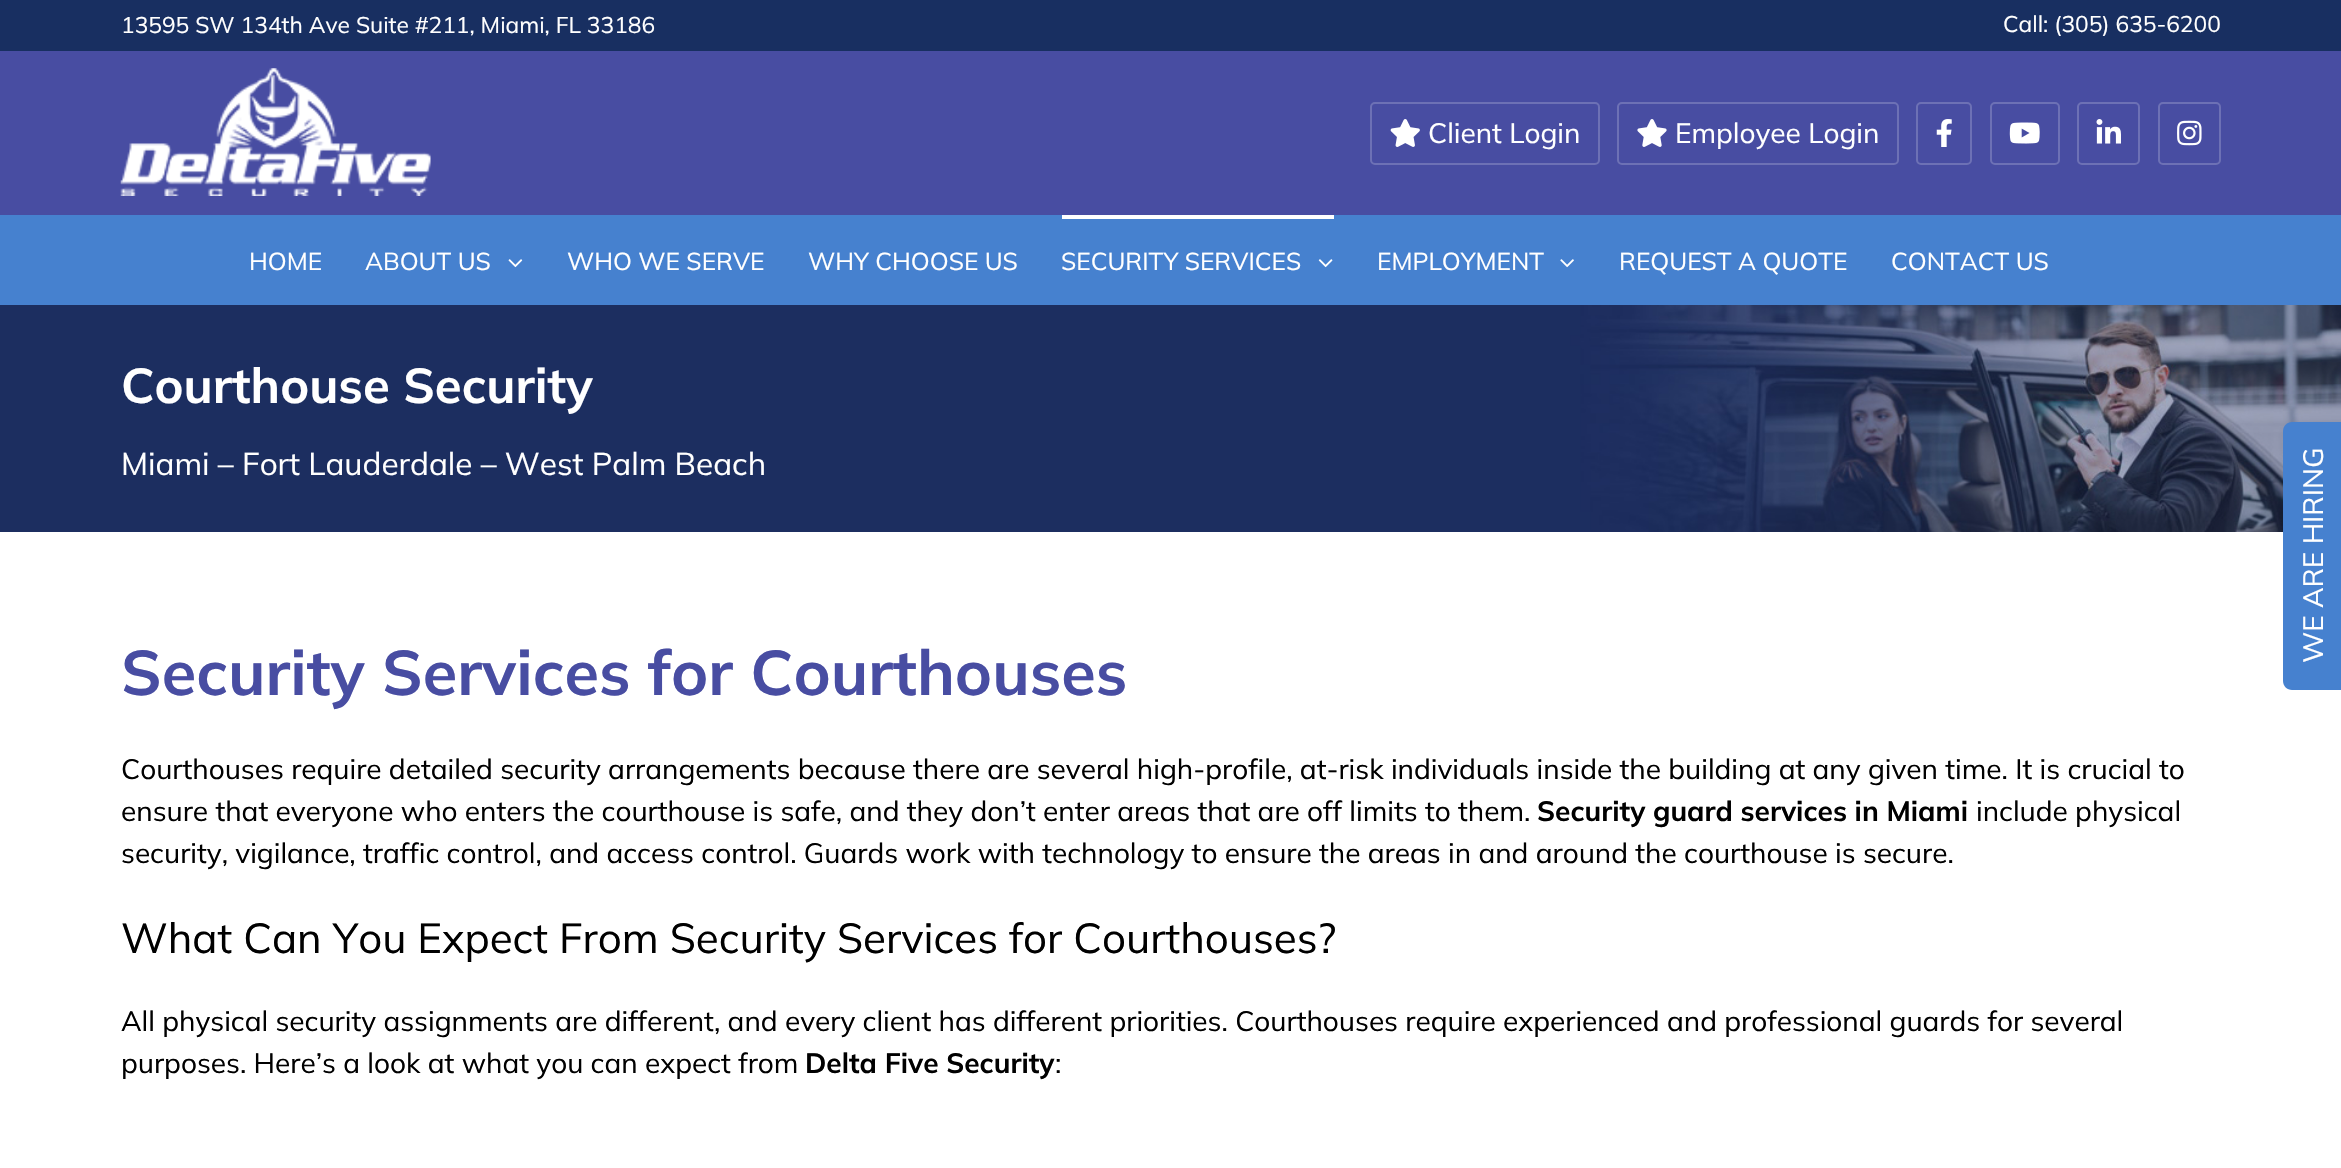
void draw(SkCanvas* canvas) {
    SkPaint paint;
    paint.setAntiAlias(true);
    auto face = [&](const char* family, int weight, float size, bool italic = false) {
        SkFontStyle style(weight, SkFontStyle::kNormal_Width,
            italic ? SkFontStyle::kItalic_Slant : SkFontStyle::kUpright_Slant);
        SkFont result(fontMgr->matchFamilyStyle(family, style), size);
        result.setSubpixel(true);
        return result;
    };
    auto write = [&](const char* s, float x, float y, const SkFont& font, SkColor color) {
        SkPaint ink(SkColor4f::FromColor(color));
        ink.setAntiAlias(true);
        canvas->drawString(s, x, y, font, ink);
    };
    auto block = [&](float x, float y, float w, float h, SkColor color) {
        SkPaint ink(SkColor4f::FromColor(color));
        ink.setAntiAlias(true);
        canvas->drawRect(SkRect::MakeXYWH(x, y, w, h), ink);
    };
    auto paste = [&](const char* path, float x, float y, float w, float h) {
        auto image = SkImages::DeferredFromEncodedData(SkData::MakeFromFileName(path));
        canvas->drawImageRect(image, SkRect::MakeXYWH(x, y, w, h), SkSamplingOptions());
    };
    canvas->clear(SK_ColorWHITE);
    block(0, 0, 2341, 51, SkColorSetRGB(24, 47, 97));
    auto kFont1 = face("Mulish", 400, 22.75f);
    write("13595 SW 134th Ave Suite #211, Miami, FL 33186", 121, 33, kFont1, SK_ColorWHITE);
    write("Call: (305) 635-6200", 2003, 32, kFont1, SK_ColorWHITE);
    block(0, 51, 2341, 164, SkColorSetRGB(72, 77, 162));
    paste("pic1.png", 120, 68, 311, 128);
    paint.setStyle(SkPaint::kStroke_Style);
    paint.setStrokeWidth(2);
    paint.setColor(SkColorSetRGB(109, 113, 181));
    canvas->drawRoundRect(SkRect::MakeXYWH(1371, 103, 228, 61), 4, 4, paint);
    paste("pic2.png", 1390, 119, 30, 28);
    auto kFont2 = face("Mulish", 400, 28);
    write("Client Login", 1428, 143, kFont2, SK_ColorWHITE);
    canvas->drawRoundRect(SkRect::MakeXYWH(1618, 103, 280, 61), 4, 4, paint);
    paste("pic3.png", 1637, 119, 30, 28);
    write("Employee Login", 1675, 143, kFont2, SK_ColorWHITE);
    canvas->drawRoundRect(SkRect::MakeXYWH(1917, 103, 54, 61), 4, 4, paint);
    paste("pic4.png", 1936, 119, 16, 28);
    canvas->drawRoundRect(SkRect::MakeXYWH(1991, 103, 68, 61), 4, 4, paint);
    paste("pic5.png", 2009, 122, 31, 22);
    canvas->drawRoundRect(SkRect::MakeXYWH(2078, 103, 61, 61), 4, 4, paint);
    paste("pic6.png", 2096, 119, 25, 25);
    canvas->drawRoundRect(SkRect::MakeXYWH(2159, 103, 61, 61), 4, 4, paint);
    paste("pic7.png", 2177, 120, 25, 26);
    block(0, 215, 2341, 90, SkColorSetRGB(70, 129, 207));
    auto kFont3 = face("Mulish", 400, 24.5f);
    write("HOME", 249, 270, kFont3, SK_ColorWHITE);
    write("ABOUT US", 365, 270, kFont3, SK_ColorWHITE);
    paste("pic8.png", 508, 259, 15, 9);
    write("WHO WE SERVE", 567, 270, kFont3, SK_ColorWHITE);
    write("WHY CHOOSE US", 808, 270, kFont3, SK_ColorWHITE);
    block(1062, 215, 272, 4, SK_ColorWHITE);
    write("SECURITY SERVICES", 1061, 270, kFont3, SK_ColorWHITE);
    paste("pic9.png", 1318, 259, 15, 9);
    write("EMPLOYMENT", 1377, 270, kFont3, SK_ColorWHITE);
    paste("pic10.png", 1560, 259, 14, 9);
    write("REQUEST A QUOTE", 1619, 270, kFont3, SK_ColorWHITE);
    write("CONTACT US", 1891, 270, kFont3, SK_ColorWHITE);
    paste("pic11.png", 0, 305, 2341, 227);
    auto kFont4 = face("Mulish", 700, 49);
    write("Courthouse Security", 121, 403, kFont4, SK_ColorWHITE);
    auto kFont5 = face("Mulish", 400, 31.5f);
    write("Miami – Fort Lauderdale – West Palm Beach", 121, 475, kFont5, SK_ColorWHITE);
    paint.setStyle(SkPaint::kFill_Style);
    paint.setColor(SkColorSetRGB(70, 129, 207));
    canvas->drawPath(SkPathBuilder().moveTo(2283, 681).lineTo(2283, 431).cubicTo(2283, 426, 2287, 422, 2292, 422).lineTo(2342, 422).lineTo(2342, 690).lineTo(2292, 690).cubicTo(2287, 690, 2283, 686, 2283, 681).close().detach(), paint);
    canvas->save();
    canvas->rotate(-90, 2323, 663);
    write("WE ARE HIRING", 2323, 663, kFont2, SK_ColorWHITE);
    canvas->restore();
    auto kFont6 = face("Mulish", 700, 63);
    write("Security Services for Courthouses", 121, 695, kFont6, SkColorSetRGB(72, 77, 162));
    write("Courthouses require detailed security arrangements because there are several high-profile, at-risk individuals inside the building at any given time. It is crucial to", 121, 779, kFont2, SK_ColorBLACK);
    write("ensure that everyone who enters the courthouse is safe, and they don’t enter areas that are off limits to them.", 121, 821, kFont2, SK_ColorBLACK);
    auto kFont7 = face("Mulish", 700, 28);
    write("Security guard services in Miami", 1537, 821, kFont7, SK_ColorBLACK);
    write("include physical", 1976, 821, kFont2, SK_ColorBLACK);
    write("security, vigilance, traffic control, and access control. Guards work with technology to ensure the areas in and around the courthouse is secure.", 121, 863, kFont2, SK_ColorBLACK);
    auto kFont8 = face("Mulish", 400, 42);
    write("What Can You Expect From Security Services for Courthouses?", 121, 953, kFont8, SK_ColorBLACK);
    write("All physical security assignments are different, and every client has different priorities. Courthouses require experienced and professional guards for several", 121, 1031, kFont2, SK_ColorBLACK);
    write("purposes. Here’s a look at what you can expect from", 121, 1073, kFont2, SK_ColorBLACK);
    write("Delta Five Security", 805, 1073, kFont7, SK_ColorBLACK);
    write(":", 1055, 1073, kFont2, SK_ColorBLACK);
}
